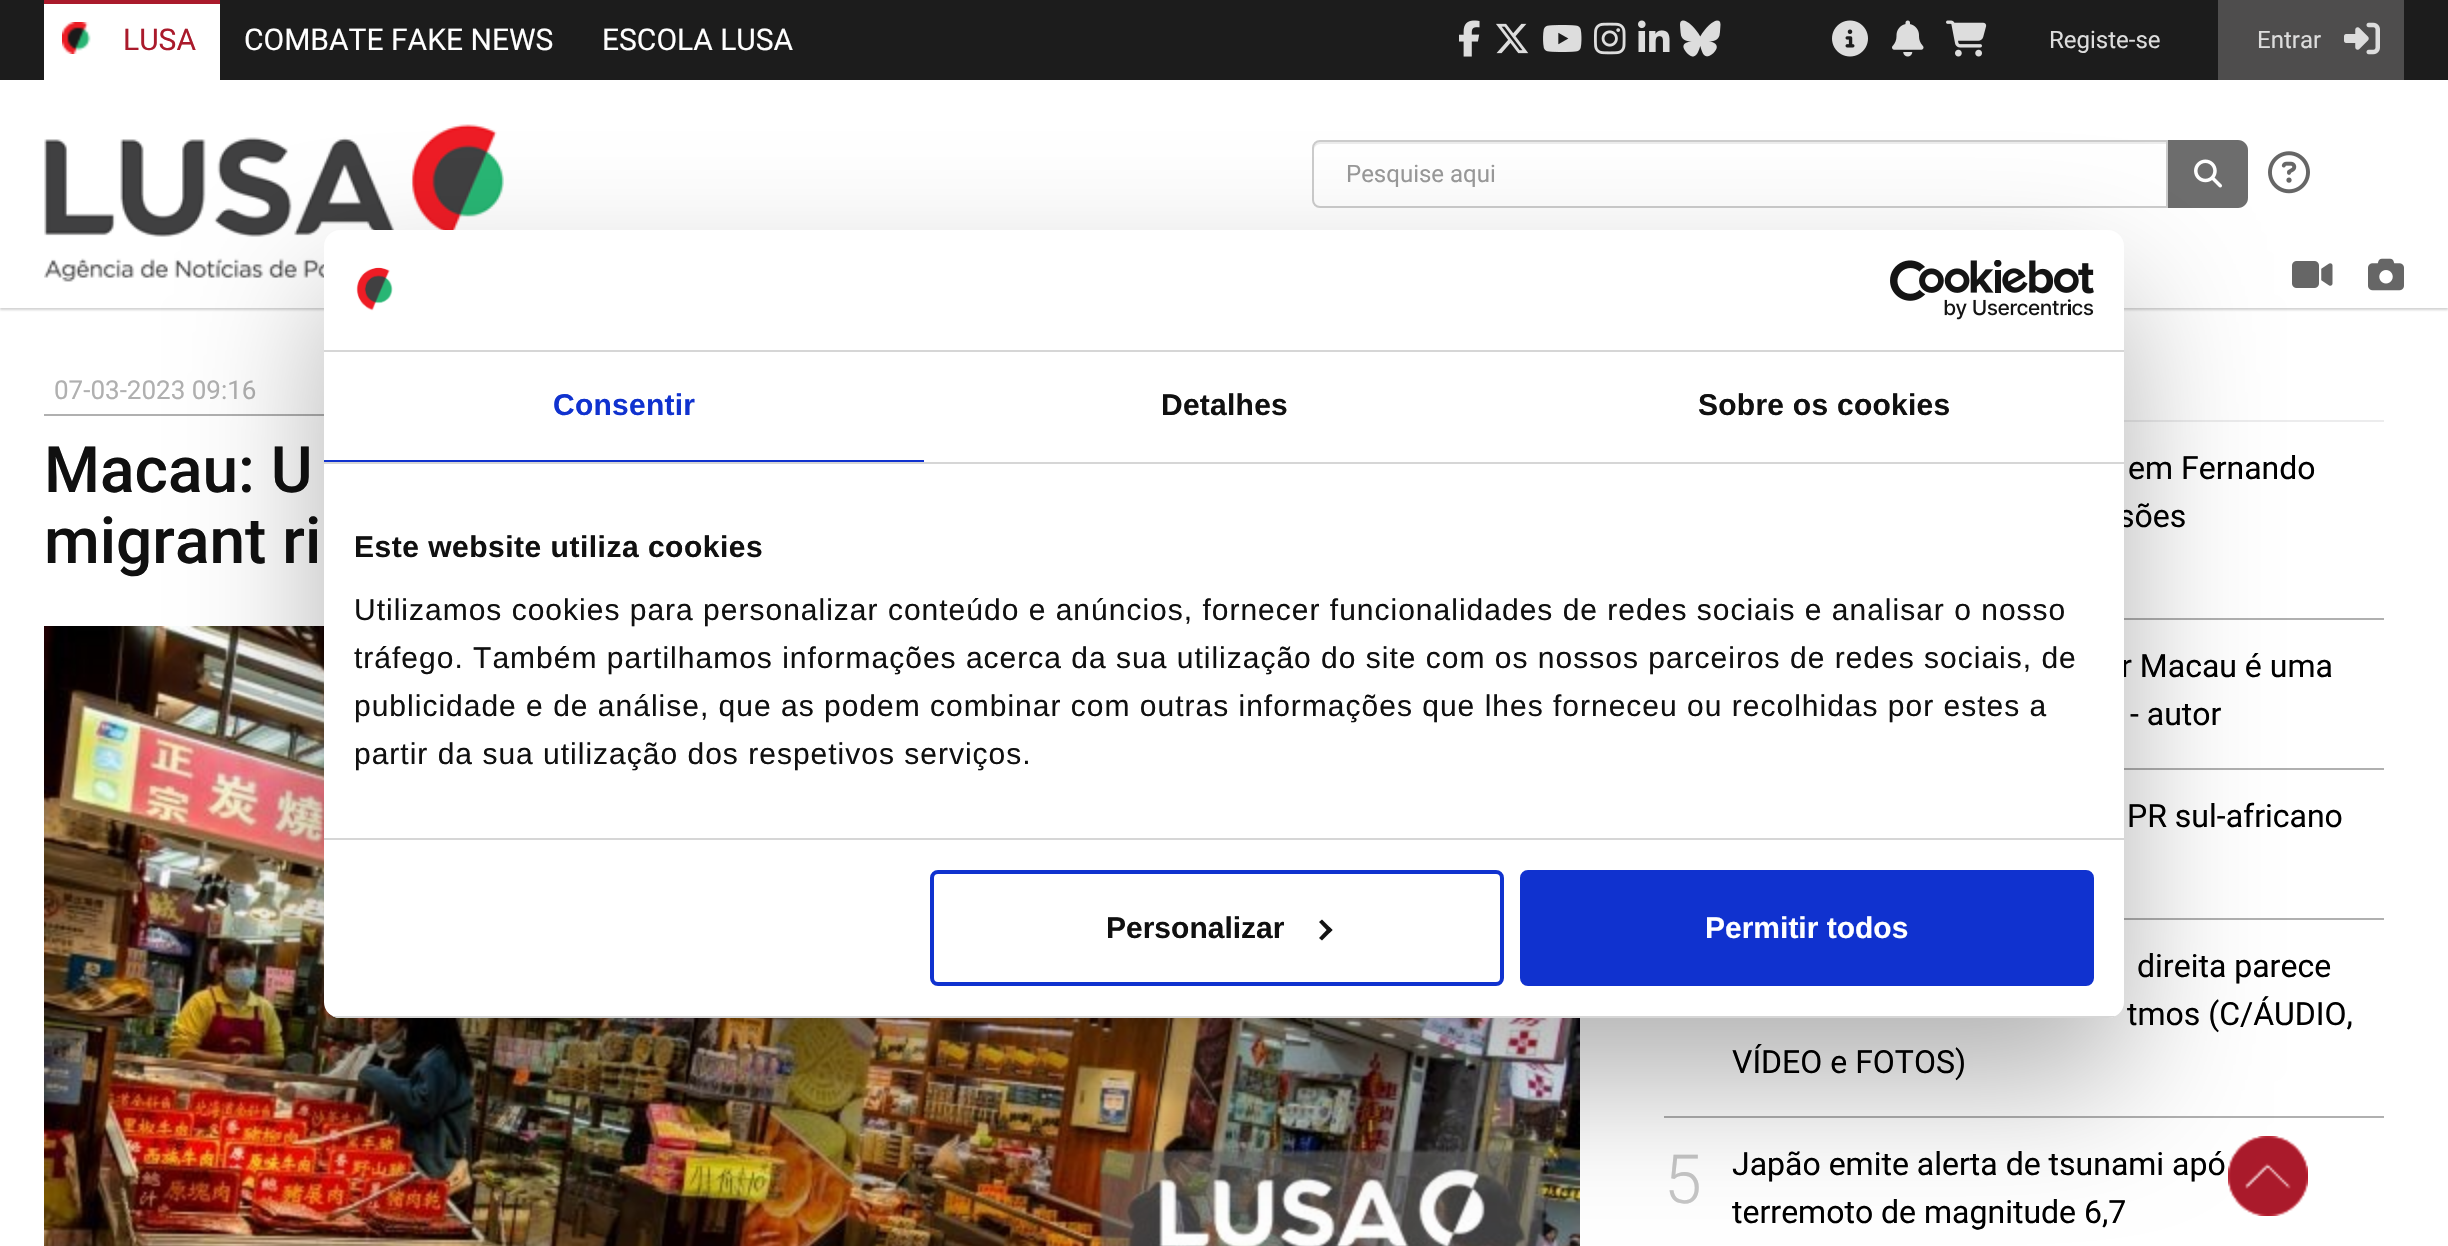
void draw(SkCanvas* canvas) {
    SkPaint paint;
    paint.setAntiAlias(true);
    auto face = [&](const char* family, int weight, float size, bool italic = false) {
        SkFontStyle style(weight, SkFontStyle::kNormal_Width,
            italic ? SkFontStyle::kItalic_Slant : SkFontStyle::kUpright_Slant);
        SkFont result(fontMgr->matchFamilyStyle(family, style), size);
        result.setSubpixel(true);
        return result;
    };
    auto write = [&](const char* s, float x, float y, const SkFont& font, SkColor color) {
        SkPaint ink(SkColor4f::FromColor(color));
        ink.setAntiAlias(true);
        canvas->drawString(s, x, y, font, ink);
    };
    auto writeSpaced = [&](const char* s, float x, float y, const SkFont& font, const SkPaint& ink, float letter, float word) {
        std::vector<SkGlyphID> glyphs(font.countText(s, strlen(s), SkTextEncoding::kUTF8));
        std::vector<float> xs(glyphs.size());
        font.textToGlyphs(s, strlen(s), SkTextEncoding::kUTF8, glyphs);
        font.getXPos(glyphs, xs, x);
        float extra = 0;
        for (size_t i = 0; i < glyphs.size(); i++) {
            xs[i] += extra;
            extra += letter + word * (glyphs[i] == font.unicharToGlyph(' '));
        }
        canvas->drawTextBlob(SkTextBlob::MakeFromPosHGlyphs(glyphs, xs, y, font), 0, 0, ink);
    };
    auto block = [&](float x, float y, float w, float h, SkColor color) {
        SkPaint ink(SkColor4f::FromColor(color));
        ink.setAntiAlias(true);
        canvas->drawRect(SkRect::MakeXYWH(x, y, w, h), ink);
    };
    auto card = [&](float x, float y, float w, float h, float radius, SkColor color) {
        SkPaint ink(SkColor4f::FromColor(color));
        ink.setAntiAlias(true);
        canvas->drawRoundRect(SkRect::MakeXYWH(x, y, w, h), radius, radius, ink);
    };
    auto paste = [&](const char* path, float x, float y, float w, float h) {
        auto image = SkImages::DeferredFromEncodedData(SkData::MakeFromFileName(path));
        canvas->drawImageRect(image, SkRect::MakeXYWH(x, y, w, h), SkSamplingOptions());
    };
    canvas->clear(SK_ColorWHITE);
    block(0, 0, 2448, 80, SkColorSetRGB(28, 28, 28));
    canvas->save();
    canvas->clipRect(SkRect::MakeXYWH(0, 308, 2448, 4));
    paint.setColor(SkColorSetRGB(211, 211, 211));
    paint.setMaskFilter(SkMaskFilter::MakeBlur(kNormal_SkBlurStyle, 1));
    canvas->drawRect(SkRect::MakeXYWH(0, 82, 2448, 228), paint);
    paint.setMaskFilter(nullptr);
    canvas->restore();
    block(44, 4, 176, 76, SK_ColorWHITE);
    block(44, 0, 176, 4, SkColorSetRGB(170, 26, 43));
    paste("pic1.png", 62, 22, 29, 32);
    auto kFont1 = face("Roboto", 400, 30);
    write("LUSA", 123, 50, kFont1, SkColorSetRGB(170, 26, 43));
    write("COMBATE FAKE NEWS", 244, 50, kFont1, SK_ColorWHITE);
    write("ESCOLA LUSA", 602, 50, kFont1, SK_ColorWHITE);
    paste("pic2.png", 1459, 20, 21, 37);
    paste("pic3.png", 1496, 23, 33, 31);
    paste("pic4.png", 1543, 25, 39, 27);
    paste("pic5.png", 1594, 22, 32, 33);
    paste("pic6.png", 1638, 20, 32, 32);
    paste("pic7.png", 1680, 20, 41, 37);
    paste("pic8.png", 1832, 20, 36, 37);
    paste("pic9.png", 1892, 20, 32, 37);
    paste("pic10.png", 1946, 20, 41, 37);
    auto kFont2 = face("Roboto", 400, 24);
    write("Registe-se", 2049, 48, kFont2, SkColorSetRGB(221, 221, 221));
    block(2218, 0, 186, 80, SkColorSetRGB(78, 77, 77));
    write("Entrar", 2257, 48, kFont2, SkColorSetRGB(221, 221, 221));
    paste("pic11.png", 2344, 22, 36, 33);
    paste("pic12.png", 44, 124, 460, 158);
    paint.setColor(SkColorSetRGB(236, 236, 236));
    canvas->drawPath(SkPathBuilder().moveTo(1320, 144).lineTo(2166, 144).lineTo(2166, 142).lineTo(1320, 142).cubicTo(1315, 142, 1314, 146, 1314, 150).cubicTo(1314, 147, 1317, 144, 1320, 144).close().detach(), paint);
    paint.setStyle(SkPaint::kStroke_Style);
    paint.setStrokeWidth(2);
    paint.setColor(SkColorSetRGB(204, 204, 204));
    canvas->drawPath(SkPathBuilder().moveTo(1320, 141).lineTo(2167, 141).lineTo(2167, 207).lineTo(1320, 207).cubicTo(1316, 207, 1313, 204, 1313, 200).lineTo(1313, 148).cubicTo(1313, 144, 1316, 141, 1320, 141).close().detach(), paint);
    write("Pesquise aqui", 1346, 182, kFont2, SkColorSetRGB(153, 153, 153));
    paint.setStyle(SkPaint::kFill_Style);
    paint.setColor(SkColorSetRGB(109, 109, 109));
    canvas->drawPath(SkPathBuilder().moveTo(2168, 140).lineTo(2238, 140).cubicTo(2243.5f, 140, 2248, 144.5f, 2248, 150).lineTo(2248, 198).cubicTo(2248, 203.5f, 2243.5f, 208, 2238, 208).lineTo(2168, 208).close().detach(), paint);
    paste("pic13.png", 2194, 159, 28, 29);
    paste("pic14.png", 2268, 151, 42, 43);
    paste("pic15.png", 2292, 261, 41, 27);
    paste("pic16.png", 2368, 258, 36, 33);
    block(44, 414, 280, 2, SkColorSetRGB(176, 176, 176));
    auto kFont3 = face("Roboto", 400, 26);
    write("07-03-2023 09:16", 54, 399, kFont3, SkColorSetRGB(176, 176, 176));
    auto kFont4 = face("Roboto", 500, 64);
    write("Macau: U", 44, 492, kFont4, SkColorSetRGB(16, 16, 16));
    write("migrant ri", 44, 563, kFont4, SkColorSetRGB(16, 16, 16));
    paste("pic17.png", 44, 626, 1536, 620);
    block(2124, 420, 260, 2, SkColorSetRGB(236, 236, 237));
    block(2124, 618, 260, 2, SkColorSetRGB(176, 176, 176));
    auto kFont5 = face("Roboto", 400, 32);
    write("em Fernando", 2128, 479, kFont5, SK_ColorBLACK);
    write("sões", 2118, 527, kFont5, SK_ColorBLACK);
    block(2124, 768, 260, 2, SkColorSetRGB(176, 176, 176));
    write("r Macau é uma", 2121, 677, kFont5, SK_ColorBLACK);
    write("- autor", 2130, 725, kFont5, SK_ColorBLACK);
    block(2124, 918, 260, 2, SkColorSetRGB(176, 176, 176));
    write("PR sul-africano", 2127, 827, kFont5, SK_ColorBLACK);
    block(1664, 1116, 720, 2, SkColorSetRGB(176, 176, 176));
    write("direita parece", 2137, 977, kFont5, SK_ColorBLACK);
    write("tmos (C/ÁUDIO,", 2127, 1025, kFont5, SK_ColorBLACK);
    write("VÍDEO e FOTOS)", 1732, 1073, kFont5, SK_ColorBLACK);
    auto kFont6 = face("Roboto", 300, 68);
    write("5", 1664, 1203, kFont6, SkColorSetRGB(198, 198, 198));
    write("Japão emite alerta de tsunami apó", 1732, 1175, kFont5, SK_ColorBLACK);
    write("terremoto de magnitude 6,7", 1732, 1223, kFont5, SK_ColorBLACK);
    paste("pic18.png", 2228, 1136, 80, 80);
    paint.setColor(SkColorSetARGB(77, 0, 0, 0));
    paint.setMaskFilter(SkMaskFilter::MakeBlur(kNormal_SkBlurStyle, 68));
    canvas->drawRoundRect(SkRect::MakeXYWH(324, 294, 1800, 788), 16, 16, paint);
    paint.setMaskFilter(nullptr);
    card(324, 230, 1800, 788, 16, SK_ColorWHITE);
    block(324, 350, 1800, 2, SkColorSetRGB(214, 214, 214));
    paste("pic19.png", 356, 267, 37, 44);
    paste("pic20.png", 1890, 260, 204, 60);
    block(324, 462, 1800, 2, SkColorSetRGB(214, 214, 214));
    block(324, 460, 600, 2, SkColorSetRGB(16, 50, 207));
    auto kFont7 = face("Liberation Sans", 700, 30);
    paint.setColor(SkColorSetRGB(16, 50, 207));
    writeSpaced("Consentir", 553, 415, kFont7, paint, 0.25f, 0);
    paint.setColor(SkColorSetRGB(16, 16, 16));
    writeSpaced("Detalhes", 1161, 415, kFont7, paint, 0.25f, 0);
    writeSpaced("Sobre os cookies", 1698, 415, kFont7, paint, 0.25f, 0);
    block(324, 838, 1800, 2, SkColorSetRGB(214, 214, 214));
    writeSpaced("Este website utiliza cookies", 354, 557, kFont7, paint, 0.5f, 0);
    auto kFont8 = face("Liberation Sans", 400, 30);
    writeSpaced("Utilizamos cookies para personalizar conteúdo e anúncios, fornecer funcionalidades de redes sociais e analisar o nosso", 354, 620, kFont8, paint, 1, 0);
    writeSpaced("tráfego. Também partilhamos informações acerca da sua utilização do site com os nossos parceiros de redes sociais, de", 354, 668, kFont8, paint, 1, 0);
    writeSpaced("publicidade e de análise, que as podem combinar com outras informações que lhes forneceu ou recolhidas por estes a", 354, 716, kFont8, paint, 1, 0);
    writeSpaced("partir da sua utilização dos respetivos serviços.", 354, 764, kFont8, paint, 1, 0);
    canvas->save();
    canvas->clipPath(SkPathBuilder().moveTo(340, 230).lineTo(2108, 230).cubicTo(2117, 230, 2124, 237, 2124, 246).lineTo(2124, 1002).cubicTo(2124, 1011, 2117, 1018, 2108, 1018).lineTo(340, 1018).cubicTo(331, 1018, 324, 1011, 324, 1002).lineTo(324, 246).cubicTo(324, 237, 331, 230, 340, 230).close().detach(), true);
    block(324, 1016, 1800, 2, SkColorSetRGB(214, 214, 214));
    canvas->restore();
    paint.setStyle(SkPaint::kStroke_Style);
    paint.setStrokeWidth(4);
    paint.setColor(SkColorSetRGB(16, 50, 207));
    canvas->drawRoundRect(SkRect::MakeXYWH(932, 872, 570, 112), 6, 6, paint);
    write("Personalizar", 1106, 938, kFont7, SkColorSetRGB(16, 16, 16));
    paint.setStyle(SkPaint::kFill_Style);
    paint.setColor(SkColorSetRGB(20, 20, 20));
    canvas->drawPath(SkPathBuilder().moveTo(1322, 919.5f).lineTo(1332.5f, 930).lineTo(1329.5f, 933).lineTo(1319, 922).close().detach(), paint);
    canvas->drawPath(SkPathBuilder().moveTo(1329.5f, 927).lineTo(1332.5f, 930).lineTo(1322, 940.5f).lineTo(1319, 938).close().detach(), paint);
    paint.setColor(SkColorSetRGB(16, 50, 207));
    canvas->drawRoundRect(SkRect::MakeXYWH(1522, 872, 570, 112), 6, 6, paint);
    paint.setStyle(SkPaint::kStroke_Style);
    canvas->drawRoundRect(SkRect::MakeXYWH(1522, 872, 570, 112), 6, 6, paint);
    write("Permitir todos", 1705, 938, kFont7, SK_ColorWHITE);
}
